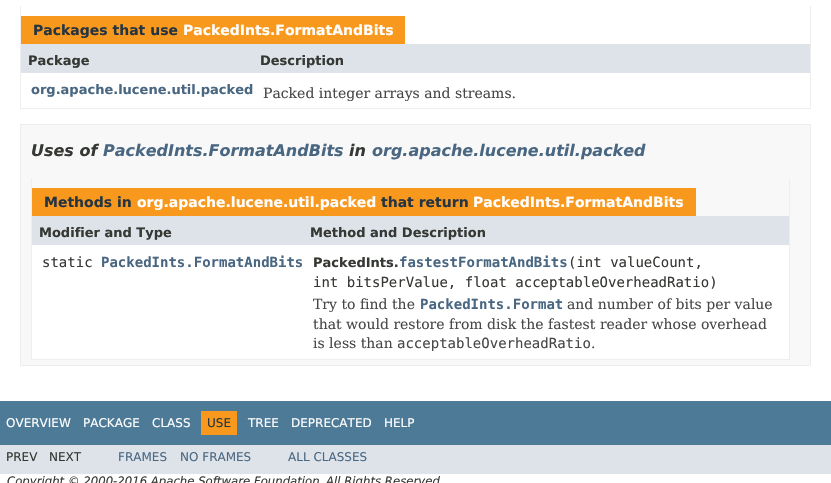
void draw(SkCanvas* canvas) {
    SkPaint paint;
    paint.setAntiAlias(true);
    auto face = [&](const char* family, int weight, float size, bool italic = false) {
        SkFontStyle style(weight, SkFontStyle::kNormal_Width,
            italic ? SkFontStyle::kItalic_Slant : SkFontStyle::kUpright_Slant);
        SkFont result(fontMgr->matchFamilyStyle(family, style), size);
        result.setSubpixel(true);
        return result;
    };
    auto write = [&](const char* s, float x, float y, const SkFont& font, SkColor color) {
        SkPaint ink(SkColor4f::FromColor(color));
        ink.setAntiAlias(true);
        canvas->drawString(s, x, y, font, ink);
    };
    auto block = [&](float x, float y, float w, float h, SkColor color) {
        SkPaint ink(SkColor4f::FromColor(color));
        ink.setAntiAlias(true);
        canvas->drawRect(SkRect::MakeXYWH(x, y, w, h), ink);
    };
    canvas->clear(SK_ColorWHITE);
    block(810, 6, 1, 103, SkColorSetRGB(238, 238, 238));
    block(20, 108, 791, 1, SkColorSetRGB(238, 238, 238));
    block(20, 6, 1, 103, SkColorSetRGB(238, 238, 238));
    block(21, 16, 384, 28, SkColorSetRGB(248, 152, 29));
    auto kFont1 = face("DejaVu Sans", 700, 14);
    write("Packages that use", 33, 35, kFont1, SkColorSetRGB(37, 52, 65));
    write("PackedInts.FormatAndBits", 183, 35, kFont1, SK_ColorWHITE);
    block(21, 44, 789, 29, SkColorSetRGB(222, 227, 233));
    auto kFont2 = face("DejaVu Sans", 700, 13);
    write("Package", 28, 65, kFont2, SkColorSetRGB(53, 56, 51));
    write("Description", 260, 65, kFont2, SkColorSetRGB(53, 56, 51));
    write("org.apache.lucene.util.packed", 31, 94, kFont2, SkColorSetRGB(74, 103, 130));
    auto kFont3 = face("DejaVu Serif", 400, 14);
    write("Packed integer arrays and streams.", 263, 98, kFont3, SkColorSetRGB(71, 71, 71));
    paint.setColor(SkColorSetRGB(248, 248, 248));
    canvas->drawRect(SkRect::MakeXYWH(20.5f, 124.5f, 790, 241), paint);
    paint.setStyle(SkPaint::kStroke_Style);
    paint.setStrokeWidth(1);
    paint.setColor(SkColorSetRGB(237, 237, 237));
    canvas->drawRect(SkRect::MakeXYWH(20.5f, 124.5f, 790, 241), paint);
    auto kFont4 = face("DejaVu Sans", 700, 16, true);
    write("Uses of", 31, 156, kFont4, SkColorSetRGB(53, 56, 51));
    write("PackedInts.FormatAndBits", 103, 156, kFont4, SkColorSetRGB(74, 103, 130));
    write("in", 349, 156, kFont4, SkColorSetRGB(53, 56, 51));
    write("org.apache.lucene.util.packed", 372, 156, kFont4, SkColorSetRGB(74, 103, 130));
    block(789, 178, 1, 182, SkColorSetRGB(238, 238, 238));
    block(31, 359, 759, 1, SkColorSetRGB(238, 238, 238));
    block(31, 178, 1, 182, SkColorSetRGB(238, 238, 238));
    block(32, 188, 664, 28, SkColorSetRGB(248, 152, 29));
    write("Methods in", 44, 207, kFont1, SkColorSetRGB(37, 52, 65));
    write("org.apache.lucene.util.packed", 137, 207, kFont1, SK_ColorWHITE);
    write("that return", 381, 207, kFont1, SkColorSetRGB(37, 52, 65));
    write("PackedInts.FormatAndBits", 473, 207, kFont1, SK_ColorWHITE);
    block(32, 216, 757, 29, SkColorSetRGB(222, 227, 233));
    write("Modifier and Type", 39, 237, kFont2, SkColorSetRGB(53, 56, 51));
    write("Method and Description", 310, 237, kFont2, SkColorSetRGB(53, 56, 51));
    block(32, 245, 757, 114, SK_ColorWHITE);
    auto kFont5 = face("DejaVu Sans Mono", 400, 14);
    write("static", 42, 267, kFont5, SkColorSetRGB(53, 56, 51));
    auto kFont6 = face("DejaVu Sans Mono", 700, 14);
    write("PackedInts.FormatAndBits", 101, 267, kFont6, SkColorSetRGB(74, 103, 130));
    write("PackedInts.", 313, 267, kFont2, SkColorSetRGB(53, 56, 51));
    write("fastestFormatAndBits", 399, 267, kFont6, SkColorSetRGB(74, 103, 130));
    write("(int valueCount,", 568, 267, kFont5, SkColorSetRGB(53, 56, 51));
    write("int bitsPerValue, float acceptableOverheadRatio)", 313, 287, kFont5, SkColorSetRGB(53, 56, 51));
    write("Try to find the", 313, 309, kFont3, SkColorSetRGB(71, 71, 71));
    write("PackedInts.Format", 420, 309, kFont6, SkColorSetRGB(74, 103, 130));
    write("and number of bits per value", 567, 309, kFont3, SkColorSetRGB(71, 71, 71));
    write("that would restore from disk the fastest reader whose overhead", 313, 329, kFont3, SkColorSetRGB(71, 71, 71));
    write("is less than", 313, 348, kFont3, SkColorSetRGB(71, 71, 71));
    write("acceptableOverheadRatio", 397, 348, kFont5, SkColorSetRGB(71, 71, 71));
    write(".", 591, 348, kFont3, SkColorSetRGB(71, 71, 71));
    block(0, 401, 831, 44, SkColorSetRGB(77, 122, 151));
    auto kFont7 = face("DejaVu Sans", 400, 12);
    write("OVERVIEW", 6, 427, kFont7, SK_ColorWHITE);
    write("PACKAGE", 83, 427, kFont7, SK_ColorWHITE);
    write("CLASS", 152, 427, kFont7, SK_ColorWHITE);
    block(201, 411, 36, 24, SkColorSetRGB(248, 152, 29));
    write("USE", 207, 427, kFont7, SkColorSetRGB(37, 52, 65));
    write("TREE", 248, 427, kFont7, SK_ColorWHITE);
    write("DEPRECATED", 291, 427, kFont7, SK_ColorWHITE);
    write("HELP", 384, 427, kFont7, SK_ColorWHITE);
    block(0, 445, 831, 29, SkColorSetRGB(222, 227, 233));
    write("PREV", 6, 461, kFont7, SkColorSetRGB(53, 56, 51));
    write("NEXT", 49, 461, kFont7, SkColorSetRGB(53, 56, 51));
    write("FRAMES", 118, 461, kFont7, SkColorSetRGB(74, 103, 130));
    write("NO FRAMES", 180, 461, kFont7, SkColorSetRGB(74, 103, 130));
    write("ALL CLASSES", 288, 461, kFont7, SkColorSetRGB(74, 103, 130));
    auto kFont8 = face("DejaVu Sans", 400, 11.7f, true);
    write("Copyright © 2000-2016 Apache Software Foundation", 7, 485, kFont8, SkColorSetRGB(53, 56, 51));
    write("All Rights Reserved.", 326, 485, kFont8, SkColorSetRGB(53, 56, 51));
}
